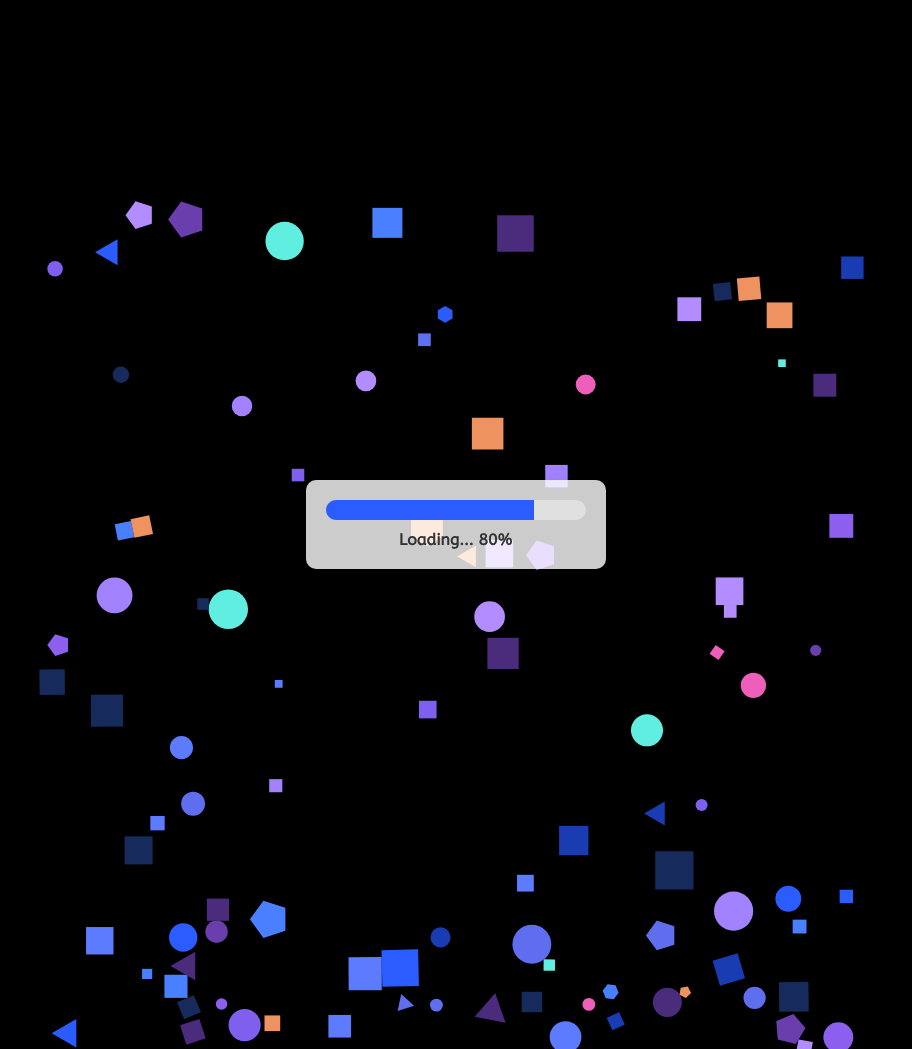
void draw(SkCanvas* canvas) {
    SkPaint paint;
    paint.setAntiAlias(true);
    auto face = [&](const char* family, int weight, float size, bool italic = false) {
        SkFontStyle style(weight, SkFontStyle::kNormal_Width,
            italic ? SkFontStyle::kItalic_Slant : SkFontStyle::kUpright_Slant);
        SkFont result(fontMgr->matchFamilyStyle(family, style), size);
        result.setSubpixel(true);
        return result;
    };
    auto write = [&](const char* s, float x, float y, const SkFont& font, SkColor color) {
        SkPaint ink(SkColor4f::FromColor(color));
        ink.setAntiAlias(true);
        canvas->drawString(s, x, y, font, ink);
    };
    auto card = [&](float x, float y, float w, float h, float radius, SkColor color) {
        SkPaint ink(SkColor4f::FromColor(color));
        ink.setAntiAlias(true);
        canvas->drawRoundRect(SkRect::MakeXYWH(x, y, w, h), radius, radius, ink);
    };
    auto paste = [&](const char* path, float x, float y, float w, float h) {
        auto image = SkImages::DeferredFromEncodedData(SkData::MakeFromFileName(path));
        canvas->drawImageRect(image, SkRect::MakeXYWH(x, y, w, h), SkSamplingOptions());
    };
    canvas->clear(SK_ColorBLACK);
    paste("pic1.png", 39, 201, 825, 848);
    canvas->save();
    canvas->clipPath(SkPathBuilder(SkPathFillType::kEvenOdd).moveTo(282, 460).lineTo(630, 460).lineTo(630, 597).lineTo(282, 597).close().moveTo(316, 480).lineTo(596, 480).cubicTo(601.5f, 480, 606, 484.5f, 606, 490).lineTo(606, 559).cubicTo(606, 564.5f, 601.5f, 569, 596, 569).lineTo(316, 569).cubicTo(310.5f, 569, 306, 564.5f, 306, 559).lineTo(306, 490).cubicTo(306, 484.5f, 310.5f, 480, 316, 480).close().detach(), true);
    paint.setColor(SkColorSetARGB(26, 0, 0, 0));
    paint.setMaskFilter(SkMaskFilter::MakeBlur(kNormal_SkBlurStyle, 7.5f));
    canvas->drawRoundRect(SkRect::MakeXYWH(306, 484, 300, 89), 10, 10, paint);
    paint.setMaskFilter(nullptr);
    canvas->restore();
    card(306, 480, 300, 89, 10, SkColorSetARGB(204, 255, 255, 255));
    card(326, 500, 260, 20, 10, SkColorSetRGB(224, 224, 224));
    paint.setColor(SkColorSetRGB(43, 92, 255));
    canvas->drawPath(SkPathBuilder().moveTo(336, 500).lineTo(534, 500).lineTo(534, 520).lineTo(336, 520).cubicTo(330.5f, 520, 326, 515.5f, 326, 510).cubicTo(326, 504.5f, 330.5f, 500, 336, 500).close().detach(), paint);
    auto kFont1 = face("ABeeZee", 700, 16);
    write("Loading... 80%", 399, 545, kFont1, SkColorSetRGB(51, 51, 51));
}
